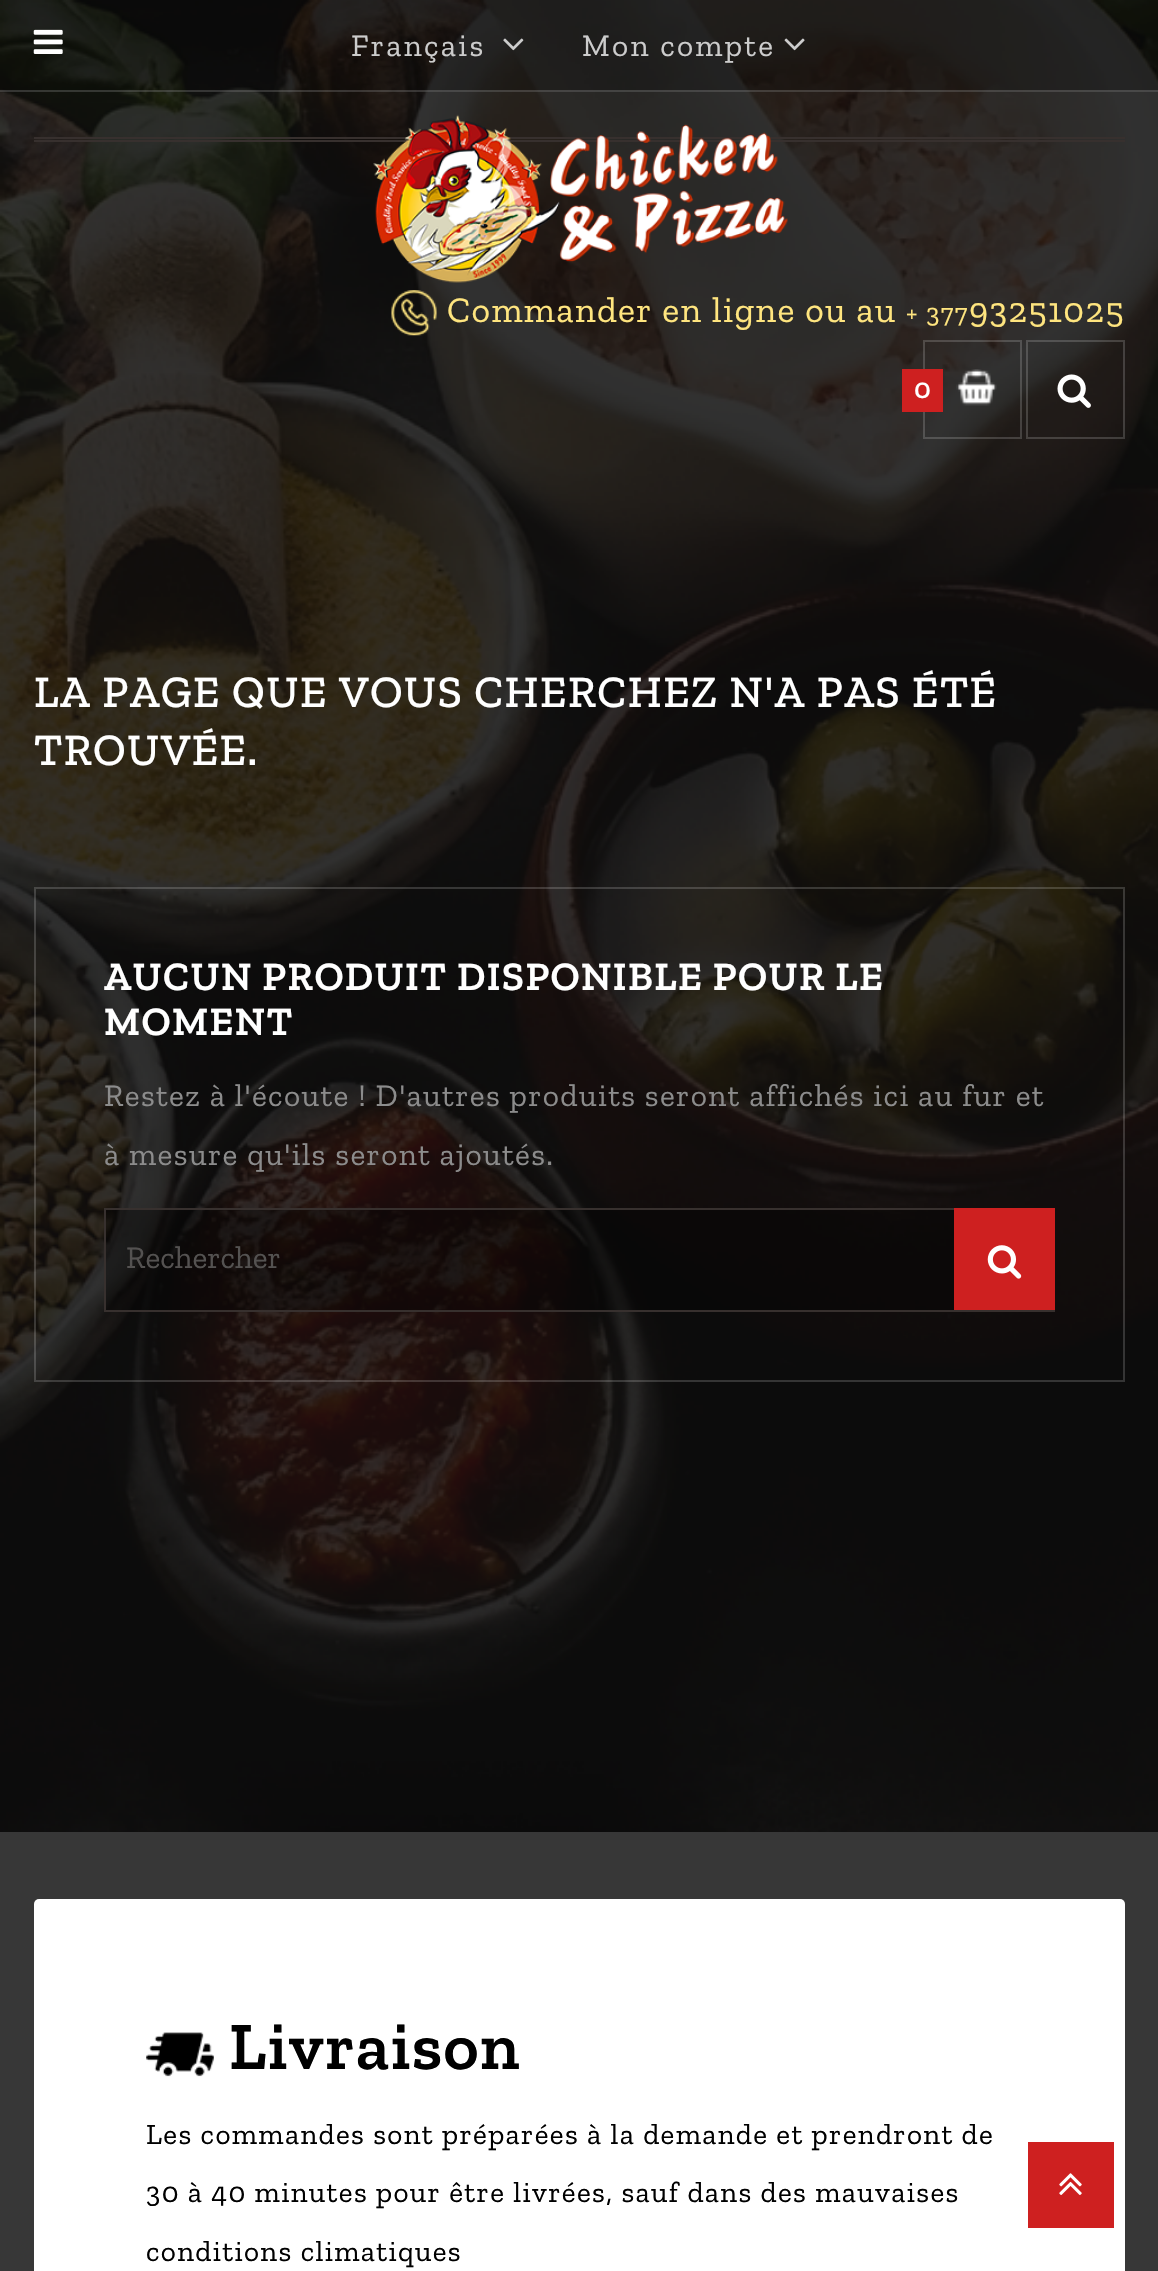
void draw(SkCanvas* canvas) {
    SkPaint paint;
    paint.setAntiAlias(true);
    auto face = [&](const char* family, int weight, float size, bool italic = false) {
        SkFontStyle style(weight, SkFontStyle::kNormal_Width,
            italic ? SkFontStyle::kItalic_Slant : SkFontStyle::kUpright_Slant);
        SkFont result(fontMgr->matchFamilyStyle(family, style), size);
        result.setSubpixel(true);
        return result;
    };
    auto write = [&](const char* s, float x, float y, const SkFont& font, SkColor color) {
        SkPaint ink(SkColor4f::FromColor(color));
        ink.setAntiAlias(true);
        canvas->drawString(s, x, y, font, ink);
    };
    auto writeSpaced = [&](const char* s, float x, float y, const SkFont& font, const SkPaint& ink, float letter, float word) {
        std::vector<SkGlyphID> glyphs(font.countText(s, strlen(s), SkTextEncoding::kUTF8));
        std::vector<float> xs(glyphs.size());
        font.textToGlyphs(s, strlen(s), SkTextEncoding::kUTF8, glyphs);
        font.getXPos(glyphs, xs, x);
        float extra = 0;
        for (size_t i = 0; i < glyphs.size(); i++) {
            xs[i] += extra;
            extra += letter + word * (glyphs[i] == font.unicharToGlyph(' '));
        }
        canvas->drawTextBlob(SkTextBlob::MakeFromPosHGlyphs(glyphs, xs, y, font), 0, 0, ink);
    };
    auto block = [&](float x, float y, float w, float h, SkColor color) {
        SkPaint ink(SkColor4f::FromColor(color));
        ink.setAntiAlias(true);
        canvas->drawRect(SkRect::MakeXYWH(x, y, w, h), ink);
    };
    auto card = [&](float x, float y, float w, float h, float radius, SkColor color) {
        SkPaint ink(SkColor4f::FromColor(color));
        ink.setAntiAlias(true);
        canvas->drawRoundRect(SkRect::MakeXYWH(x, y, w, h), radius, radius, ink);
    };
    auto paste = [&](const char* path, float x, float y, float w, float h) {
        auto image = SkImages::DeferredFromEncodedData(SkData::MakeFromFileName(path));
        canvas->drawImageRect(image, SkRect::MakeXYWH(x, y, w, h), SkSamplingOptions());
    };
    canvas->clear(SK_ColorWHITE);
    paste("pic1.png", 0, 0, 1158, 1832);
    block(0, 0, 1158, 92, SkColorSetARGB(66, 0, 0, 0));
    block(0, 90, 1158, 2, SkColorSetARGB(43, 255, 255, 255));
    auto kFont1 = face("Zilla Slab", 400, 31.5f);
    paint.setColor(SkColorSetRGB(204, 204, 204));
    writeSpaced("Français", 351, 56, kFont1, paint, 2.25f, 0);
    paste("pic2.png", 503, 38, 21, 13);
    writeSpaced("Mon compte", 582, 56, kFont1, paint, 2.25f, 0);
    paste("pic3.png", 784, 38, 21, 13);
    paste("pic4.png", 391, 290, 46, 46);
    auto kFont2 = face("Zilla Slab", 400, 36);
    paint.setColor(SkColorSetRGB(255, 229, 127));
    writeSpaced("Commander en ligne ou au", 447, 322, kFont2, paint, 1.35f, 0);
    auto kFont3 = face("Zilla Slab", 400, 27);
    writeSpaced("+ 377", 906, 322, kFont3, paint, 1.35f, 0);
    writeSpaced("93251025", 969, 322, kFont2, paint, 1.35f, 0);
    block(34, 137, 1091, 2, SkColorSetRGB(55, 48, 46));
    block(34, 140, 1091, 2, SkColorSetRGB(55, 48, 46));
    paste("pic5.png", 33, 29, 30, 25);
    paste("pic6.png", 373, 114, 415, 169);
    paste("pic7.png", 956, 369, 41, 37);
    paint.setStyle(SkPaint::kStroke_Style);
    paint.setStrokeWidth(2);
    paint.setColor(SkColorSetARGB(43, 255, 255, 255));
    canvas->drawRect(SkRect::MakeXYWH(924, 341, 97, 97), paint);
    block(902, 369, 41, 43, SkColorSetRGB(206, 32, 32));
    auto kFont4 = face("Zilla Slab", 500, 29.25f);
    paint.setStyle(SkPaint::kFill_Style);
    paint.setColor(SK_ColorWHITE);
    writeSpaced("0", 914, 398, kFont4, paint, 1.35f, 0);
    paint.setStyle(SkPaint::kStroke_Style);
    paint.setColor(SkColorSetARGB(43, 255, 255, 255));
    canvas->drawRect(SkRect::MakeXYWH(1027, 341, 97, 97), paint);
    paste("pic8.png", 1057, 374, 34, 34);
    auto kFont5 = face("Zilla Slab", 500, 45);
    paint.setStyle(SkPaint::kFill_Style);
    paint.setColor(SK_ColorWHITE);
    writeSpaced("LA PAGE QUE VOUS CHERCHEZ N'A PAS ÉTÉ", 34, 707, kFont5, paint, 1.35f, 0);
    writeSpaced("TROUVÉE.", 34, 765, kFont5, paint, 1.35f, 0);
    paint.setStyle(SkPaint::kStroke_Style);
    paint.setColor(SkColorSetARGB(43, 255, 255, 255));
    canvas->drawRect(SkRect::MakeXYWH(35, 888, 1089, 493), paint);
    auto kFont6 = face("Zilla Slab", 600, 40.5f);
    paint.setStyle(SkPaint::kFill_Style);
    paint.setColor(SK_ColorWHITE);
    writeSpaced("AUCUN PRODUIT DISPONIBLE POUR LE", 104, 990, kFont6, paint, 1.35f, 0);
    writeSpaced("MOMENT", 104, 1035, kFont6, paint, 1.35f, 0);
    paint.setColor(SkColorSetRGB(140, 140, 140));
    writeSpaced("Restez à l'écoute ! D'autres produits seront affichés ici au fur et", 104, 1106, kFont1, paint, 1.35f, 0);
    writeSpaced("à mesure qu'ils seront ajoutés.", 104, 1165, kFont1, paint, 1.35f, 0);
    block(106, 1210, 848, 100, SkColorSetARGB(102, 0, 0, 0));
    paint.setStyle(SkPaint::kStroke_Style);
    paint.setColor(SkColorSetRGB(55, 48, 46));
    canvas->drawRect(SkRect::MakeXYWH(105, 1209, 949, 102), paint);
    write("Rechercher", 126, 1268, kFont1, SkColorSetRGB(84, 82, 81));
    block(954, 1208, 101, 102, SkColorSetRGB(206, 32, 32));
    paste("pic9.png", 987, 1245, 35, 34);
    block(0, 1832, 1158, 439, SkColorSetRGB(55, 55, 55));
    card(34, 1899, 1091, 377, 5, SK_ColorWHITE);
    paste("pic10.png", 146, 2032, 68, 45);
    auto kFont7 = face("Zilla Slab", 600, 67.5f);
    paint.setStyle(SkPaint::kFill_Style);
    paint.setColor(SK_ColorBLACK);
    writeSpaced("Livraison", 229, 2069, kFont7, paint, 1.35f, 0);
    auto kFont8 = face("Zilla Slab", 400, 29.25f);
    writeSpaced("Les commandes sont préparées à la demande et prendront de", 146, 2144, kFont8, paint, 1.35f, 0);
    writeSpaced("30 à 40 minutes pour être livrées, sauf dans des mauvaises", 146, 2202, kFont8, paint, 1.35f, 0);
    writeSpaced("conditions climatiques", 146, 2261, kFont8, paint, 1.35f, 0);
    block(1028, 2142, 86, 86, SkColorSetRGB(206, 32, 32));
    paste("pic11.png", 1059, 2173, 23, 22);
}
